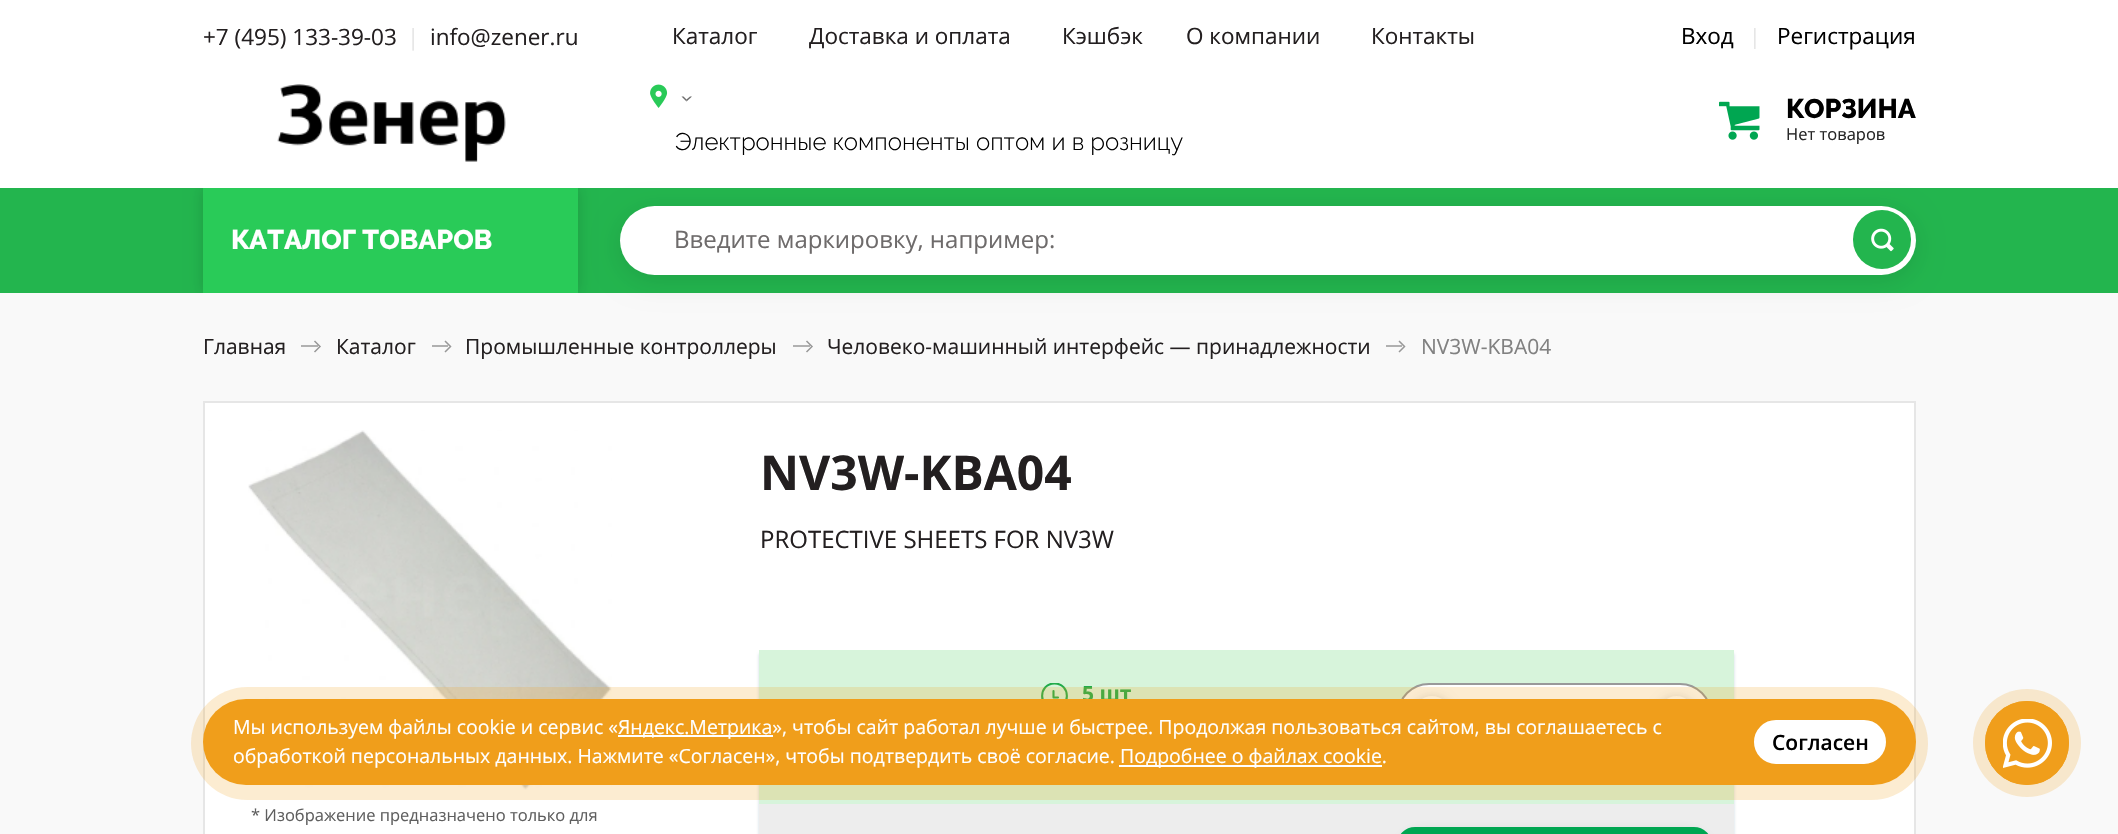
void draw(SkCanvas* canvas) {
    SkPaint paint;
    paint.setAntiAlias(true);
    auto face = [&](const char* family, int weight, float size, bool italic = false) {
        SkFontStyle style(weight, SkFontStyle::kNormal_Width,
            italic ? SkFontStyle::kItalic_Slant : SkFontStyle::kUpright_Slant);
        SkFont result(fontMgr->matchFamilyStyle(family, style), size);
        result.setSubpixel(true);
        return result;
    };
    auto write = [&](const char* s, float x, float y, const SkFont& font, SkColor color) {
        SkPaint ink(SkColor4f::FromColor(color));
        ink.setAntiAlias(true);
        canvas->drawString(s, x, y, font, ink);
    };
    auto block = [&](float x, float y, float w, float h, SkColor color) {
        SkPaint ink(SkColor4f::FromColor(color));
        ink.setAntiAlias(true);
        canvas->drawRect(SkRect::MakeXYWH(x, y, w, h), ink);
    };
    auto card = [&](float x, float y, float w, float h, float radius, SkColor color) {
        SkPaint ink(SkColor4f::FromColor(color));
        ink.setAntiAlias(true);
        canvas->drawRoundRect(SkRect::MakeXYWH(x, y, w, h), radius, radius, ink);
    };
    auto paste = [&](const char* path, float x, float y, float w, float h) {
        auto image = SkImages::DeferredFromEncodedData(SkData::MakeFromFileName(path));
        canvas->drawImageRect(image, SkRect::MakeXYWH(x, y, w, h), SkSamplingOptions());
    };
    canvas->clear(SkColorSetRGB(249, 249, 249));
    block(0, 0, 2118, 188, SK_ColorWHITE);
    auto kFont1 = face("Open Sans", 400, 22.5f);
    write("+7 (495) 133-39-03", 203, 45, kFont1, SkColorSetRGB(35, 31, 32));
    write("|", 407, 45, kFont1, SkColorSetRGB(230, 230, 230));
    write("info@zener.ru", 430, 45, kFont1, SkColorSetRGB(35, 31, 32));
    paste("pic1.png", 277, 84, 229, 78);
    write("Каталог", 672, 44, kFont1, SkColorSetRGB(35, 31, 32));
    write("Доставка и оплата", 809, 44, kFont1, SkColorSetRGB(35, 31, 32));
    write("Кэшбэк", 1062, 44, kFont1, SkColorSetRGB(35, 31, 32));
    write("О компании", 1186, 44, kFont1, SkColorSetRGB(35, 31, 32));
    write("Контакты", 1371, 44, kFont1, SkColorSetRGB(35, 31, 32));
    write("Вход", 1681, 44, kFont1, SK_ColorBLACK);
    auto kFont2 = face("Open Sans", 400, 21);
    write("|", 1749, 44, kFont2, SkColorSetRGB(230, 230, 230));
    write("Регистрация", 1777, 44, kFont1, SK_ColorBLACK);
    paste("pic2.png", 650, 84, 18, 24);
    paint.setColor(SkColorSetRGB(108, 108, 108));
    canvas->drawPath(SkPathBuilder().moveTo(692, 96.5f).lineTo(686.5f, 101.5f).lineTo(686.5f, 99.5f).lineTo(690, 96.5f).close().detach(), paint);
    canvas->drawPath(SkPathBuilder().moveTo(686.5f, 101.5f).lineTo(681.5f, 96.5f).lineTo(683.5f, 96.5f).lineTo(686.5f, 99.5f).close().detach(), paint);
    auto kFont3 = face("Raleway", 300, 24);
    write("Электронные компоненты оптом и в розницу", 675, 150, kFont3, SK_ColorBLACK);
    paste("pic3.png", 1719, 101, 41, 39);
    auto kFont4 = face("Raleway", 800, 27);
    write("КОРЗИНА", 1786, 118, kFont4, SK_ColorBLACK);
    auto kFont5 = face("Open Sans", 400, 16.5f);
    write("Нет товаров", 1786, 140, kFont5, SkColorSetRGB(38, 38, 38));
    block(0, 188, 2118, 105, SkColorSetRGB(35, 181, 78));
    canvas->save();
    canvas->clipRect(SkRect::MakeXYWH(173, 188, 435, 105));
    paint.setColor(SkColorSetARGB(38, 0, 0, 0));
    paint.setMaskFilter(SkMaskFilter::MakeBlur(kNormal_SkBlurStyle, 7));
    canvas->drawRect(SkRect::MakeXYWH(203, 188, 375, 105), paint);
    paint.setMaskFilter(nullptr);
    canvas->restore();
    block(203, 188, 375, 105, SkColorSetRGB(41, 203, 88));
    write("КАТАЛОГ ТОВАРОВ", 231, 249, kFont4, SK_ColorWHITE);
    paint.setColor(SkColorSetARGB(26, 0, 0, 0));
    paint.setMaskFilter(SkMaskFilter::MakeBlur(kNormal_SkBlurStyle, 13.5f));
    canvas->drawRoundRect(SkRect::MakeXYWH(620, 212, 1296, 69), 34.5f, 34.5f, paint);
    paint.setMaskFilter(nullptr);
    card(620, 206, 1296, 69, 34.5f, SK_ColorWHITE);
    auto kFont6 = face("Open Sans", 400, 24);
    write("Введите маркировку, например:", 674, 248, kFont6, SkColorSetRGB(110, 107, 107));
    card(1853, 210, 58, 59, 29, SkColorSetRGB(35, 181, 78));
    paste("pic4.png", 1871, 228, 23, 24);
    write("Главная", 203, 354, kFont2, SkColorSetRGB(35, 31, 32));
    paint.setStyle(SkPaint::kStroke_Style);
    paint.setStrokeWidth(1.5f);
    paint.setColor(SkColorSetRGB(152, 152, 152));
    canvas->drawPath(SkPathBuilder().moveTo(314.5f, 341).lineTo(320, 346.5f).lineTo(314.5f, 352).detach(), paint);
    block(301, 345, 17, 2, SkColorSetARGB(191, 152, 152, 152));
    write("Каталог", 336, 354, kFont2, SkColorSetRGB(35, 31, 32));
    canvas->drawPath(SkPathBuilder().moveTo(445, 341).lineTo(450.5f, 346.5f).lineTo(445, 352).detach(), paint);
    block(432, 345, 16, 2, SkColorSetRGB(176, 176, 176));
    write("Промышленные контроллеры", 465, 354, kFont2, SkColorSetRGB(35, 31, 32));
    canvas->drawPath(SkPathBuilder().moveTo(806.5f, 341).lineTo(812, 346.5f).lineTo(806.5f, 352).detach(), paint);
    block(793, 345, 17, 2, SkColorSetARGB(191, 152, 152, 152));
    write("Человеко-машинный интерфейс — принадлежности", 827, 354, kFont2, SkColorSetRGB(35, 31, 32));
    canvas->drawPath(SkPathBuilder().moveTo(1399, 341).lineTo(1404.5f, 346.5f).lineTo(1399, 352).detach(), paint);
    block(1386, 345, 16, 2, SkColorSetRGB(176, 176, 176));
    write("NV3W-KBA04", 1421, 354, kFont2, SkColorSetRGB(129, 129, 129));
    paint.setStyle(SkPaint::kFill_Style);
    paint.setColor(SK_ColorWHITE);
    canvas->drawRect(SkRect::MakeXYWH(204, 402, 1711, 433), paint);
    paint.setStyle(SkPaint::kStroke_Style);
    paint.setStrokeWidth(2);
    paint.setColor(SkColorSetRGB(230, 230, 230));
    canvas->drawRect(SkRect::MakeXYWH(204, 402, 1711, 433), paint);
    auto kFont7 = face("Open Sans", 700, 48);
    write("NV3W-KBA04", 760, 490, kFont7, SkColorSetRGB(35, 31, 32));
    write("PROTECTIVE SHEETS FOR NV3W", 760, 548, kFont6, SkColorSetRGB(35, 31, 32));
    paint.setStyle(SkPaint::kFill_Style);
    paint.setColor(SkColorSetRGB(202, 216, 225));
    paint.setMaskFilter(SkMaskFilter::MakeBlur(kNormal_SkBlurStyle, 1.5f));
    canvas->drawRoundRect(SkRect::MakeXYWH(759, 653, 975, 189), 3, 3, paint);
    paint.setMaskFilter(nullptr);
    block(759, 650, 975, 154, SkColorSetRGB(215, 244, 219));
    canvas->save();
    canvas->clipRect(SkRect::MakeXYWH(1041, 683, 27, 27));
    paint.setStyle(SkPaint::kStroke_Style);
    paint.setStrokeWidth(2.1f);
    paint.setStrokeCap(SkPaint::kRound_Cap);
    paint.setColor(SkColorSetRGB(33, 171, 74));
    canvas->drawPath(SkPathBuilder().moveTo(1054.5f, 708.5f).cubicTo(1071, 708.5f, 1071, 683.5f, 1054.5f, 683.5f).cubicTo(1038, 683.5f, 1038, 708.5f, 1054.5f, 708.5f).close().detach(), paint);
    canvas->restore();
    canvas->drawPath(SkPathBuilder().moveTo(1058, 697.5f).lineTo(1053.5f, 697.5f).moveTo(1053.5f, 691).lineTo(1053.5f, 697).detach(), paint);
    auto kFont8 = face("Open Sans", 700, 21);
    write("5 шт", 1082, 701, kFont8, SkColorSetRGB(33, 171, 74));
    paint.setStyle(SkPaint::kFill_Style);
    paint.setColor(SK_ColorWHITE);
    canvas->drawRoundRect(SkRect::MakeXYWH(1398, 684, 313, 62), 31, 31, paint);
    paint.setStyle(SkPaint::kStroke_Style);
    paint.setStrokeWidth(2);
    paint.setStrokeCap(SkPaint::kButt_Cap);
    paint.setColor(SkColorSetRGB(153, 153, 153));
    canvas->drawRoundRect(SkRect::MakeXYWH(1398, 684, 313, 62), 31, 31, paint);
    paint.setStyle(SkPaint::kFill_Style);
    paint.setColor(SkColorSetARGB(51, 0, 0, 0));
    paint.setMaskFilter(SkMaskFilter::MakeBlur(kNormal_SkBlurStyle, 6));
    canvas->drawRoundRect(SkRect::MakeXYWH(1413, 698, 38, 37), 18.5f, 18.5f, paint);
    paint.setMaskFilter(nullptr);
    paint.setColor(SK_ColorWHITE);
    canvas->drawCircle(1432, 715, 19, paint);
    paint.setColor(SkColorSetARGB(51, 0, 0, 0));
    paint.setMaskFilter(SkMaskFilter::MakeBlur(kNormal_SkBlurStyle, 6));
    canvas->drawRoundRect(SkRect::MakeXYWH(1658, 698, 37, 37), 18.5f, 18.5f, paint);
    paint.setMaskFilter(nullptr);
    card(1658, 696, 37, 38, 18.5f, SK_ColorWHITE);
    block(759, 804, 975, 30, SkColorSetRGB(237, 237, 237));
    paint.setColor(SkColorSetARGB(38, 17, 68, 28));
    paint.setMaskFilter(SkMaskFilter::MakeBlur(kNormal_SkBlurStyle, 6));
    canvas->drawRoundRect(SkRect::MakeXYWH(1397, 831, 315, 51), 29.5f, 29.5f, paint);
    paint.setMaskFilter(nullptr);
    card(1397, 827, 315, 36, 29, SkColorSetRGB(0, 166, 81));
    paste("pic5.png", 248, 430, 364, 360);
    write("* Изображение предназначено только для", 251, 821, kFont5, SkColorSetRGB(95, 95, 95));
    paint.setStyle(SkPaint::kStroke_Style);
    paint.setColor(SkColorSetRGB(240, 158, 27));
    canvas->drawCircle(2027, 743, 41, paint);
    paint.setStyle(SkPaint::kFill_Style);
    canvas->drawCircle(2027, 743, 42, paint);
    paint.setColor(SkColorSetARGB(51, 240, 158, 27));
    canvas->drawCircle(2027, 743, 54, paint);
    paste("pic6.png", 2003, 719, 49, 49);
    card(203, 699, 1713, 86, 43, SkColorSetRGB(240, 158, 27));
    card(191, 687, 1737, 113, 56.5f, SkColorSetARGB(51, 240, 158, 27));
    auto kFont9 = face("Open Sans", 400, 19.5f);
    write("Мы используем файлы cookie и сервис «", 233, 734, kFont9, SK_ColorWHITE);
    block(618, 735, 155, 2, SK_ColorWHITE);
    write("Яндекс.Метрика», чтобы сайт работал лучше и быстрее. Продолжая пользоваться сайтом, вы соглашаетесь с", 618, 734, kFont9, SK_ColorWHITE);
    write("обработкой персональных данных. Нажмите «Согласен», чтобы подтвердить своё согласие.", 233, 763, kFont9, SK_ColorWHITE);
    block(1119, 765, 263, 2, SK_ColorWHITE);
    write("Подробнее о файлах cookie.", 1120, 763, kFont9, SK_ColorWHITE);
    paint.setColor(SK_ColorWHITE);
    canvas->drawRoundRect(SkRect::MakeXYWH(1755, 721, 130, 42), 21, 21, paint);
    paint.setStyle(SkPaint::kStroke_Style);
    canvas->drawRoundRect(SkRect::MakeXYWH(1755, 721, 130, 42), 21, 21, paint);
    auto kFont10 = face("Open Sans", 600, 21);
    write("Согласен", 1772, 750, kFont10, SK_ColorBLACK);
}
